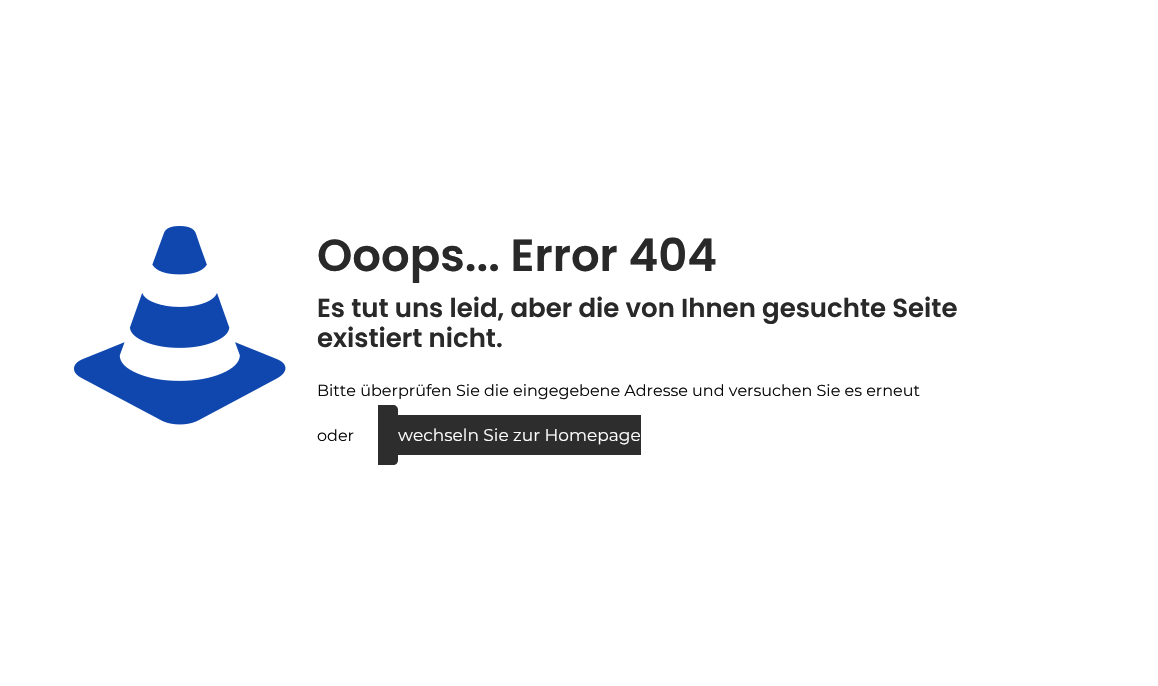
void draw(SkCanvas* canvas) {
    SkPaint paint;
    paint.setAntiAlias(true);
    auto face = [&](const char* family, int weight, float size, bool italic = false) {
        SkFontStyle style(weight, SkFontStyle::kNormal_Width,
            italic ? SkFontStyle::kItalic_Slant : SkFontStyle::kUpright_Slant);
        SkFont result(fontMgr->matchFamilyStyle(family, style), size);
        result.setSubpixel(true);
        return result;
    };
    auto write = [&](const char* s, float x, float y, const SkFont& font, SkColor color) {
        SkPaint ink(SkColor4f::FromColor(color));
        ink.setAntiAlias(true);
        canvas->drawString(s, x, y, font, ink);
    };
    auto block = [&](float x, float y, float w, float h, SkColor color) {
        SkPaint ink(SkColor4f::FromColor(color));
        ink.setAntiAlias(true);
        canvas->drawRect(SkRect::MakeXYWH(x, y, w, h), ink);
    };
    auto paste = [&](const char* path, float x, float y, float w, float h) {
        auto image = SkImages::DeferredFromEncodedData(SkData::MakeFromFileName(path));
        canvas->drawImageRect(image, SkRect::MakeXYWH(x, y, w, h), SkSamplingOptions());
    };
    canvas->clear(SK_ColorWHITE);
    paste("pic1.png", 74, 226, 212, 199);
    auto kFont1 = face("Poppins", 600, 45);
    write("Ooops... Error 404", 317, 271, kFont1, SkColorSetRGB(41, 41, 41));
    auto kFont2 = face("Poppins", 600, 26);
    write("Es tut uns leid, aber die von Ihnen gesuchte Seite", 317, 317, kFont2, SkColorSetRGB(41, 41, 41));
    write("existiert nicht.", 317, 347, kFont2, SkColorSetRGB(41, 41, 41));
    auto kFont3 = face("Montserrat", 100, 16);
    write("Bitte überprüfen Sie die eingegebene Adresse und versuchen Sie es erneut", 317, 396, kFont3, SkColorSetRGB(10, 10, 10));
    write("oder", 317, 441, kFont3, SkColorSetRGB(10, 10, 10));
    block(398, 415, 243, 40, SkColorSetRGB(45, 45, 45));
    paint.setStyle(SkPaint::kStroke_Style);
    paint.setStrokeWidth(1);
    paint.setColor(SkColorSetARGB(8, 0, 0, 0));
    canvas->drawRect(SkRect::MakeXYWH(378.5f, 415.5f, 262, 39), paint);
    auto kFont4 = face("Montserrat", 100, 17);
    write("wechseln Sie zur Homepage", 398, 441, kFont4, SK_ColorWHITE);
    paint.setStyle(SkPaint::kFill_Style);
    paint.setColor(SkColorSetRGB(45, 45, 45));
    canvas->drawPath(SkPathBuilder().moveTo(378, 405).lineTo(393, 405).cubicTo(396, 405, 398, 407, 398, 410).lineTo(398, 460).cubicTo(398, 463, 396, 465, 393, 465).lineTo(378, 465).close().detach(), paint);
}
